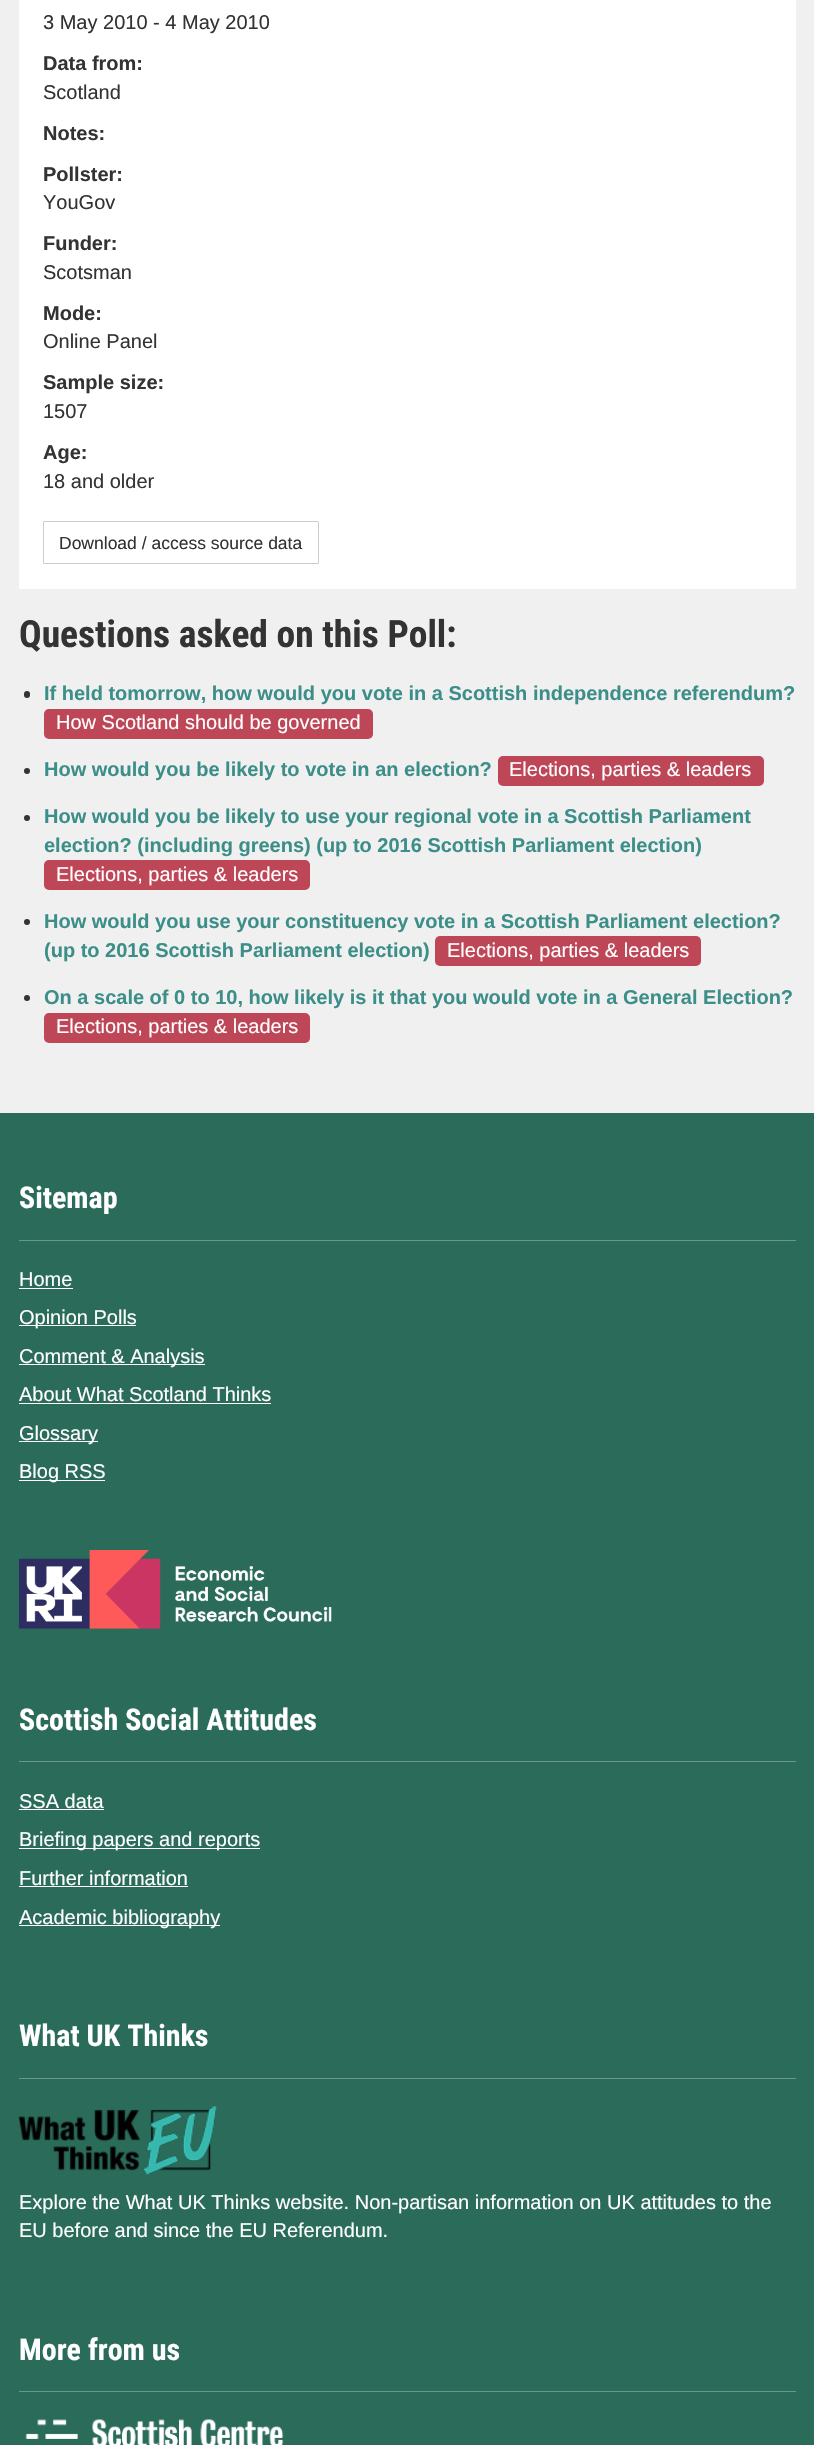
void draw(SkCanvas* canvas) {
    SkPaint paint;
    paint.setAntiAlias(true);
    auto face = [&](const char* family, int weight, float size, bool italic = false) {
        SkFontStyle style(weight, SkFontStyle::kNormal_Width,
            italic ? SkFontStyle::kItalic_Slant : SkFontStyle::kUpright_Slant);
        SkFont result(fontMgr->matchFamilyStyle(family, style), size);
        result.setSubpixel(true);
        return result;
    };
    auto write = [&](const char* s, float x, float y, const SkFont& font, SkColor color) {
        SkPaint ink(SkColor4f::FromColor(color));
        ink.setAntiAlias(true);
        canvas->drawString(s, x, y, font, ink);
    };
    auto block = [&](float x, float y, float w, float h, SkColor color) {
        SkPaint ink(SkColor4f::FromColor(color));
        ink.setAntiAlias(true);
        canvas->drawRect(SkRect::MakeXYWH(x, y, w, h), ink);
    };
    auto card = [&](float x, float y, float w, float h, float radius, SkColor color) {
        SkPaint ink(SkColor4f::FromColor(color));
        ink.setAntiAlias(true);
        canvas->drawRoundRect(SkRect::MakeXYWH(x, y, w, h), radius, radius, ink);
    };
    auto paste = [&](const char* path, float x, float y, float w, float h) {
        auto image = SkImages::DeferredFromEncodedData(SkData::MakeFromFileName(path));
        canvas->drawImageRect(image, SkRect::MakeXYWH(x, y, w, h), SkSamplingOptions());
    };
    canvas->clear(SkColorSetRGB(240, 240, 240));
    block(19, 0, 777, 589, SK_ColorWHITE);
    auto kFont1 = face("Liberation Sans", 400, 20);
    write("3 May 2010 - 4 May 2010", 43, 29, kFont1, SkColorSetRGB(51, 51, 51));
    auto kFont2 = face("Liberation Sans", 700, 20);
    write("Data from:", 43, 70, kFont2, SkColorSetRGB(51, 51, 51));
    write("Scotland", 43, 99, kFont1, SkColorSetRGB(51, 51, 51));
    write("Notes:", 43, 140, kFont2, SkColorSetRGB(51, 51, 51));
    write("Pollster:", 43, 181, kFont2, SkColorSetRGB(51, 51, 51));
    write("YouGov", 43, 209, kFont1, SkColorSetRGB(51, 51, 51));
    write("Funder:", 43, 250, kFont2, SkColorSetRGB(51, 51, 51));
    write("Scotsman", 43, 279, kFont1, SkColorSetRGB(51, 51, 51));
    write("Mode:", 43, 320, kFont2, SkColorSetRGB(51, 51, 51));
    write("Online Panel", 43, 348, kFont1, SkColorSetRGB(51, 51, 51));
    write("Sample size:", 43, 389, kFont2, SkColorSetRGB(51, 51, 51));
    write("1507", 43, 418, kFont1, SkColorSetRGB(51, 51, 51));
    write("Age:", 43, 459, kFont2, SkColorSetRGB(51, 51, 51));
    write("18 and older", 43, 488, kFont1, SkColorSetRGB(51, 51, 51));
    paint.setStyle(SkPaint::kStroke_Style);
    paint.setStrokeWidth(1);
    paint.setColor(SkColorSetRGB(204, 204, 204));
    canvas->drawRoundRect(SkRect::MakeXYWH(43.5f, 521.5f, 275, 42), 0.5f, 0.5f, paint);
    auto kFont3 = face("Liberation Sans", 400, 17.5f);
    write("Download / access source data", 59, 549, kFont3, SkColorSetRGB(51, 51, 51));
    auto kFont4 = face("Roboto Condensed", 700, 37.5f);
    write("Questions asked on this Poll:", 19, 647, kFont4, SkColorSetRGB(51, 51, 51));
    card(24, 691, 6, 7, 3, SkColorSetRGB(51, 51, 51));
    write("If held tomorrow, how would you vote in a Scottish independence referendum?", 44, 700, kFont2, SkColorSetRGB(60, 142, 136));
    card(44, 709, 329, 30, 5, SkColorSetRGB(189, 70, 87));
    write("How Scotland should be governed", 56, 729, kFont1, SK_ColorWHITE);
    paint.setStyle(SkPaint::kFill_Style);
    paint.setColor(SkColorSetRGB(51, 51, 51));
    canvas->drawCircle(27, 771, 3, paint);
    write("How would you be likely to vote in an election?", 44, 776, kFont2, SkColorSetRGB(60, 142, 136));
    card(498, 756, 266, 30, 5, SkColorSetRGB(189, 70, 87));
    write("Elections, parties & leaders", 509, 776, kFont1, SK_ColorWHITE);
    canvas->drawCircle(27, 818, 3, paint);
    write("How would you be likely to use your regional vote in a Scottish Parliament", 44, 823, kFont2, SkColorSetRGB(60, 142, 136));
    write("election? (including greens) (up to 2016 Scottish Parliament election)", 44, 852, kFont2, SkColorSetRGB(60, 142, 136));
    card(44, 860, 266, 30, 5, SkColorSetRGB(189, 70, 87));
    write("Elections, parties & leaders", 56, 881, kFont1, SK_ColorWHITE);
    canvas->drawCircle(27, 922, 3, paint);
    write("How would you use your constituency vote in a Scottish Parliament election?", 44, 928, kFont2, SkColorSetRGB(60, 142, 136));
    write("(up to 2016 Scottish Parliament election)", 44, 957, kFont2, SkColorSetRGB(60, 142, 136));
    card(435, 936, 266, 30, 5, SkColorSetRGB(189, 70, 87));
    write("Elections, parties & leaders", 447, 957, kFont1, SK_ColorWHITE);
    canvas->drawCircle(27, 998, 3, paint);
    write("On a scale of 0 to 10, how likely is it that you would vote in a General Election?", 44, 1004, kFont2, SkColorSetRGB(60, 142, 136));
    card(44, 1013, 266, 30, 5, SkColorSetRGB(189, 70, 87));
    write("Elections, parties & leaders", 56, 1033, kFont1, SK_ColorWHITE);
    block(0, 1113, 814, 1332, SkColorSetRGB(42, 107, 90));
    block(19, 1240, 777, 1, SkColorSetRGB(106, 151, 140));
    auto kFont5 = face("Roboto Condensed", 700, 30);
    write("Sitemap", 19, 1208, kFont5, SK_ColorWHITE);
    write("Home", 19, 1286, kFont1, SK_ColorWHITE);
    block(19, 1288, 54, 1, SK_ColorWHITE);
    block(19, 1325, 117, 1, SK_ColorWHITE);
    write("Opinion Polls", 19, 1324, kFont1, SK_ColorWHITE);
    block(19, 1364, 186, 1, SK_ColorWHITE);
    write("Comment & Analysis", 19, 1363, kFont1, SK_ColorWHITE);
    write("About What Scotland Thinks", 19, 1401, kFont1, SK_ColorWHITE);
    block(19, 1403, 252, 1, SK_ColorWHITE);
    block(19, 1441, 79, 1, SK_ColorWHITE);
    write("Glossary", 19, 1440, kFont1, SK_ColorWHITE);
    block(19, 1480, 86, 1, SK_ColorWHITE);
    write("Blog RSS", 19, 1478, kFont1, SK_ColorWHITE);
    paste("pic1.png", 18, 1550, 314, 79);
    block(19, 1761, 777, 1, SkColorSetRGB(106, 151, 140));
    write("Scottish Social Attitudes", 19, 1730, kFont5, SK_ColorWHITE);
    write("SSA data", 19, 1808, kFont1, SK_ColorWHITE);
    block(19, 1809, 85, 1, SK_ColorWHITE);
    block(19, 1848, 241, 1, SK_ColorWHITE);
    write("Briefing papers and reports", 19, 1846, kFont1, SK_ColorWHITE);
    write("Further information", 19, 1885, kFont1, SK_ColorWHITE);
    block(19, 1886, 169, 1, SK_ColorWHITE);
    block(19, 1925, 201, 1, SK_ColorWHITE);
    write("Academic bibliography", 19, 1924, kFont1, SK_ColorWHITE);
    block(19, 2078, 777, 1, SkColorSetRGB(106, 151, 140));
    write("What UK Thinks", 19, 2046, kFont5, SK_ColorWHITE);
    paste("pic2.png", 18, 2106, 199, 69);
    write("Explore the What UK Thinks website. Non-partisan information on UK attitudes to the", 19, 2209, kFont1, SK_ColorWHITE);
    write("EU before and since the EU Referendum.", 19, 2237, kFont1, SK_ColorWHITE);
    block(19, 2391, 777, 1, SkColorSetRGB(106, 151, 140));
    write("More from us", 19, 2360, kFont5, SK_ColorWHITE);
    paste("pic3.png", 25, 2419, 259, 26);
}
